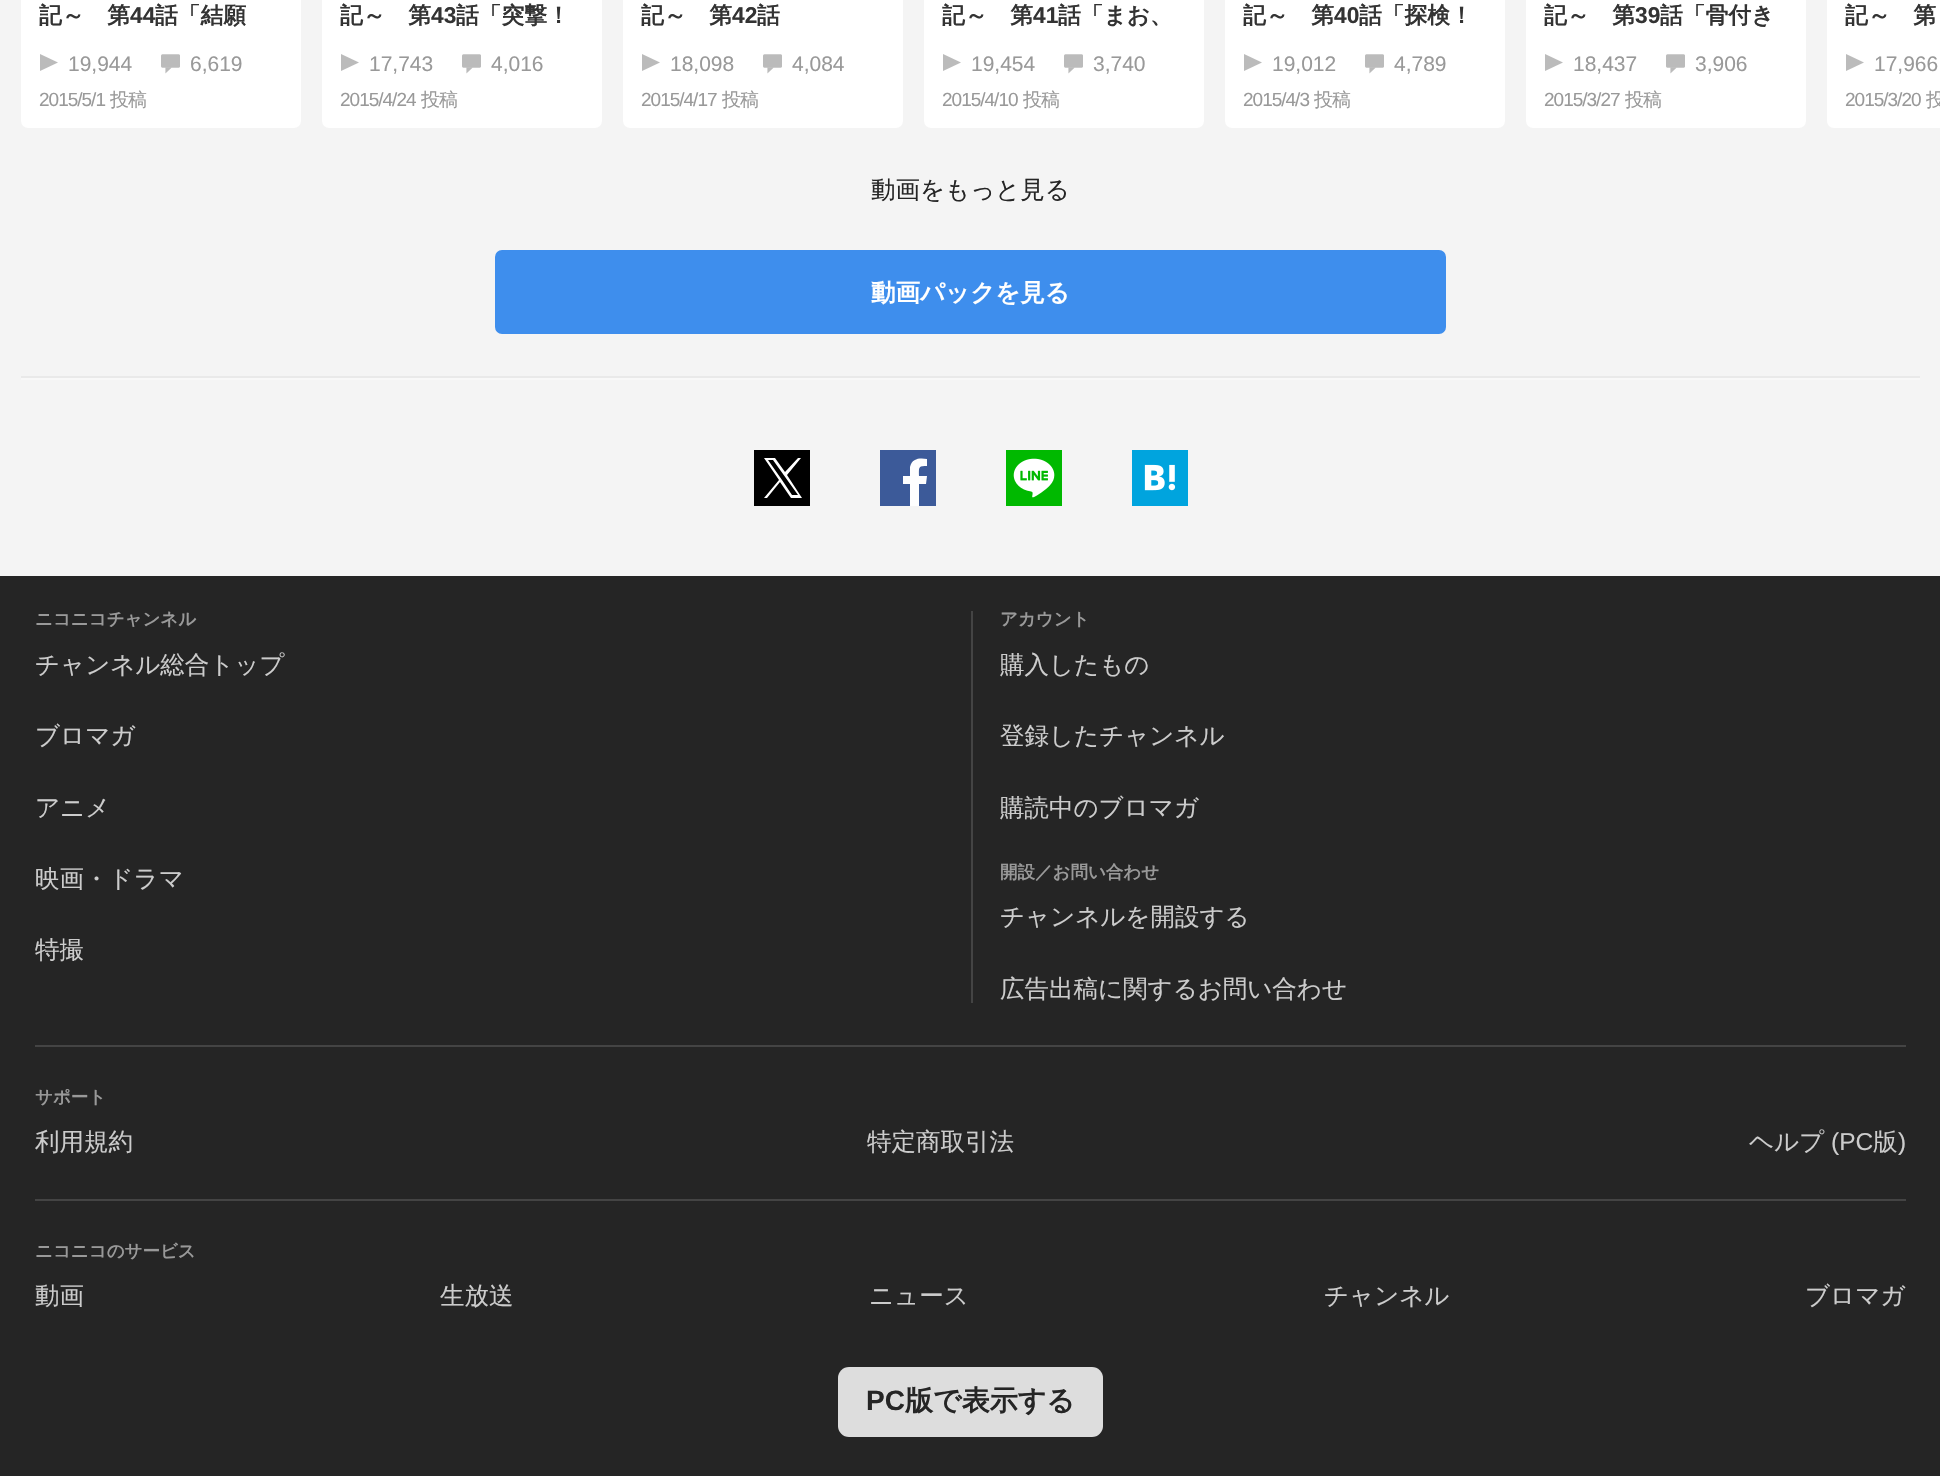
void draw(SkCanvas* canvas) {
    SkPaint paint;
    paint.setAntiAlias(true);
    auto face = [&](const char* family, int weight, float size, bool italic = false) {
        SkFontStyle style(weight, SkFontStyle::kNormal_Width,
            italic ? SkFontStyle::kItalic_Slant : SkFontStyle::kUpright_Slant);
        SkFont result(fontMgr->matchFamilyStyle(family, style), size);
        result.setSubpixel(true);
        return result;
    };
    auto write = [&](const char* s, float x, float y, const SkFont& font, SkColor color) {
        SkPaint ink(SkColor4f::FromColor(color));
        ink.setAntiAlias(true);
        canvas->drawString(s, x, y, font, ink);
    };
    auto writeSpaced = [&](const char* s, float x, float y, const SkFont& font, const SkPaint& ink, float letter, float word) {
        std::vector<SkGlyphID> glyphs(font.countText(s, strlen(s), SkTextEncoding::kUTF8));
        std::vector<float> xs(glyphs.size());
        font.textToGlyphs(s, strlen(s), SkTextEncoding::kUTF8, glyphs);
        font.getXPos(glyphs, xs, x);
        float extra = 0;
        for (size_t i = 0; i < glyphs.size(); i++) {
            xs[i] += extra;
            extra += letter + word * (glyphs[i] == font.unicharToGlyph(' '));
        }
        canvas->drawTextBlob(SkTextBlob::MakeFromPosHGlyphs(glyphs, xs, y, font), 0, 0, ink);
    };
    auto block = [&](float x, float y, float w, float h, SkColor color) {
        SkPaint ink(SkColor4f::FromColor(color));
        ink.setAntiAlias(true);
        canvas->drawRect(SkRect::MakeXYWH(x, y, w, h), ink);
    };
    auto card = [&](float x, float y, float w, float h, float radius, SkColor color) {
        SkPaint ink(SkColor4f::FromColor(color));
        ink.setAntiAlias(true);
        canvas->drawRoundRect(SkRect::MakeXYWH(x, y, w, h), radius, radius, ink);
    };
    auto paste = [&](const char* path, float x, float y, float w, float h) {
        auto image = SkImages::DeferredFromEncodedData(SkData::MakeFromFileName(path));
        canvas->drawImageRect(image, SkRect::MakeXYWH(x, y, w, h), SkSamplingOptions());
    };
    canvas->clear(SkColorSetRGB(244, 244, 244));
    card(21, -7, 280, 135, 7, SK_ColorWHITE);
    auto kFont1 = face("WenQuanYi Zen Hei", 700, 22.75f);
    write("記～　第", 39, 23, kFont1, SkColorSetRGB(51, 51, 51));
    auto kFont2 = face("Liberation Sans", 700, 22.75f);
    write("44", 130, 23, kFont2, SkColorSetRGB(51, 51, 51));
    write("話「結願", 155, 23, kFont1, SkColorSetRGB(51, 51, 51));
    paint.setColor(SkColorSetRGB(187, 187, 187));
    canvas->drawPath(SkPathBuilder(SkPathFillType::kEvenOdd).moveTo(40, 54).lineTo(40, 71).lineTo(58, 62.5f).close().detach(), paint);
    auto kFont3 = face("Liberation Sans", 400, 21);
    write("19,944", 68, 71, kFont3, SkColorSetRGB(153, 153, 153));
    paste("pic1.png", 161, 54, 19, 20);
    write("6,619", 190, 71, kFont3, SkColorSetRGB(153, 153, 153));
    auto kFont4 = face("Liberation Sans", 400, 19);
    paint.setColor(SkColorSetRGB(153, 153, 153));
    writeSpaced("2015/5/1", 39, 106, kFont4, paint, -1, 0);
    auto kFont5 = face("WenQuanYi Zen Hei", 500, 19);
    writeSpaced("投稿", 110, 106, kFont5, paint, -1, 0);
    card(322, -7, 280, 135, 7, SK_ColorWHITE);
    write("記～　第", 340, 23, kFont1, SkColorSetRGB(51, 51, 51));
    write("43", 431, 23, kFont2, SkColorSetRGB(51, 51, 51));
    write("話「突撃！", 456, 23, kFont1, SkColorSetRGB(51, 51, 51));
    paint.setColor(SkColorSetRGB(187, 187, 187));
    canvas->drawPath(SkPathBuilder(SkPathFillType::kEvenOdd).moveTo(341, 54).lineTo(341, 71).lineTo(359, 62.5f).close().detach(), paint);
    write("17,743", 369, 71, kFont3, SkColorSetRGB(153, 153, 153));
    paste("pic1.png", 462, 54, 19, 20);
    write("4,016", 491, 71, kFont3, SkColorSetRGB(153, 153, 153));
    paint.setColor(SkColorSetRGB(153, 153, 153));
    writeSpaced("2015/4/24", 340, 106, kFont4, paint, -1, 0);
    writeSpaced("投稿", 421, 106, kFont5, paint, -1, 0);
    card(623, -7, 280, 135, 7, SK_ColorWHITE);
    write("記～　第", 641, 23, kFont1, SkColorSetRGB(51, 51, 51));
    write("42", 732, 23, kFont2, SkColorSetRGB(51, 51, 51));
    write("話", 757, 23, kFont1, SkColorSetRGB(51, 51, 51));
    paint.setColor(SkColorSetRGB(187, 187, 187));
    canvas->drawPath(SkPathBuilder(SkPathFillType::kEvenOdd).moveTo(642, 54).lineTo(642, 71).lineTo(660, 62.5f).close().detach(), paint);
    write("18,098", 670, 71, kFont3, SkColorSetRGB(153, 153, 153));
    paste("pic1.png", 763, 54, 19, 20);
    write("4,084", 792, 71, kFont3, SkColorSetRGB(153, 153, 153));
    paint.setColor(SkColorSetRGB(153, 153, 153));
    writeSpaced("2015/4/17", 641, 106, kFont4, paint, -1, 0);
    writeSpaced("投稿", 722, 106, kFont5, paint, -1, 0);
    card(924, -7, 280, 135, 7, SK_ColorWHITE);
    write("記～　第", 942, 23, kFont1, SkColorSetRGB(51, 51, 51));
    write("41", 1033, 23, kFont2, SkColorSetRGB(51, 51, 51));
    write("話「まお、", 1058, 23, kFont1, SkColorSetRGB(51, 51, 51));
    paint.setColor(SkColorSetRGB(187, 187, 187));
    canvas->drawPath(SkPathBuilder(SkPathFillType::kEvenOdd).moveTo(943, 54).lineTo(943, 71).lineTo(961, 62.5f).close().detach(), paint);
    write("19,454", 971, 71, kFont3, SkColorSetRGB(153, 153, 153));
    paste("pic1.png", 1064, 54, 19, 20);
    write("3,740", 1093, 71, kFont3, SkColorSetRGB(153, 153, 153));
    paint.setColor(SkColorSetRGB(153, 153, 153));
    writeSpaced("2015/4/10", 942, 106, kFont4, paint, -1, 0);
    writeSpaced("投稿", 1023, 106, kFont5, paint, -1, 0);
    card(1225, -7, 280, 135, 7, SK_ColorWHITE);
    write("記～　第", 1243, 23, kFont1, SkColorSetRGB(51, 51, 51));
    write("40", 1334, 23, kFont2, SkColorSetRGB(51, 51, 51));
    write("話「探検！", 1359, 23, kFont1, SkColorSetRGB(51, 51, 51));
    paint.setColor(SkColorSetRGB(187, 187, 187));
    canvas->drawPath(SkPathBuilder(SkPathFillType::kEvenOdd).moveTo(1244, 54).lineTo(1244, 71).lineTo(1262, 62.5f).close().detach(), paint);
    write("19,012", 1272, 71, kFont3, SkColorSetRGB(153, 153, 153));
    paste("pic1.png", 1365, 54, 19, 20);
    write("4,789", 1394, 71, kFont3, SkColorSetRGB(153, 153, 153));
    paint.setColor(SkColorSetRGB(153, 153, 153));
    writeSpaced("2015/4/3", 1243, 106, kFont4, paint, -1, 0);
    writeSpaced("投稿", 1314, 106, kFont5, paint, -1, 0);
    card(1526, -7, 280, 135, 7, SK_ColorWHITE);
    write("記～　第", 1544, 23, kFont1, SkColorSetRGB(51, 51, 51));
    write("39", 1635, 23, kFont2, SkColorSetRGB(51, 51, 51));
    write("話「骨付き", 1660, 23, kFont1, SkColorSetRGB(51, 51, 51));
    paint.setColor(SkColorSetRGB(187, 187, 187));
    canvas->drawPath(SkPathBuilder(SkPathFillType::kEvenOdd).moveTo(1545, 54).lineTo(1545, 71).lineTo(1563, 62.5f).close().detach(), paint);
    write("18,437", 1573, 71, kFont3, SkColorSetRGB(153, 153, 153));
    paste("pic1.png", 1666, 54, 19, 20);
    write("3,906", 1695, 71, kFont3, SkColorSetRGB(153, 153, 153));
    paint.setColor(SkColorSetRGB(153, 153, 153));
    writeSpaced("2015/3/27", 1544, 106, kFont4, paint, -1, 0);
    writeSpaced("投稿", 1625, 106, kFont5, paint, -1, 0);
    paint.setColor(SK_ColorWHITE);
    canvas->drawPath(SkPathBuilder().moveTo(1834, -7).lineTo(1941, -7).lineTo(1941, 128).lineTo(1834, 128).cubicTo(1830, 128, 1827, 125, 1827, 121).lineTo(1827, 0).cubicTo(1827, -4, 1830, -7, 1834, -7).close().detach(), paint);
    write("記～　第", 1845, 23, kFont1, SkColorSetRGB(51, 51, 51));
    paint.setColor(SkColorSetRGB(187, 187, 187));
    canvas->drawPath(SkPathBuilder(SkPathFillType::kEvenOdd).moveTo(1846, 54).lineTo(1846, 71).lineTo(1864, 62.5f).close().detach(), paint);
    write("17,966", 1874, 71, kFont3, SkColorSetRGB(153, 153, 153));
    paint.setColor(SkColorSetRGB(153, 153, 153));
    writeSpaced("2015/3/20", 1845, 106, kFont4, paint, -1, 0);
    writeSpaced("投", 1926, 106, kFont5, paint, -1, 0);
    auto kFont6 = face("WenQuanYi Zen Hei", 500, 24.5f);
    write("動画をもっと見る", 871, 198, kFont6, SkColorSetRGB(37, 37, 37));
    paint.setColor(SkColorSetRGB(62, 142, 237));
    canvas->drawRoundRect(SkRect::MakeXYWH(497, 252, 947, 80), 5, 5, paint);
    paint.setStyle(SkPaint::kStroke_Style);
    paint.setStrokeWidth(4);
    canvas->drawRoundRect(SkRect::MakeXYWH(497, 252, 947, 80), 5, 5, paint);
    auto kFont7 = face("WenQuanYi Zen Hei", 700, 24.5f);
    write("動画パックを見る", 871, 301, kFont7, SK_ColorWHITE);
    block(21, 376, 1899, 2, SkColorSetRGB(233, 233, 233));
    block(21, 378, 1899, 2, SkColorSetRGB(248, 248, 248));
    block(754, 450, 56, 56, SK_ColorBLACK);
    paint.setStyle(SkPaint::kFill_Style);
    paint.setColor(SK_ColorWHITE);
    canvas->drawPath(SkPathBuilder().moveTo(787, 475).lineTo(801, 458).lineTo(798, 458).lineTo(785, 472).lineTo(775, 458).lineTo(764, 458).lineTo(779, 480).lineTo(764, 498).lineTo(767, 498).lineTo(780, 482).lineTo(791, 498).lineTo(802, 498).close().moveTo(782, 480).lineTo(768, 460).lineTo(773, 460).lineTo(798, 495).lineTo(792, 495).close().detach(), paint);
    block(880, 450, 56, 56, SkColorSetRGB(60, 90, 153));
    paint.setColor(SkColorSetRGB(254, 254, 254));
    canvas->drawPath(SkPathBuilder(SkPathFillType::kEvenOdd).moveTo(919, 506).lineTo(919, 484).lineTo(926, 484).lineTo(927, 476).lineTo(919, 476).cubicTo(919, 467, 918, 466, 927, 466).lineTo(927, 459).cubicTo(920, 458, 912, 458, 910, 467).lineTo(910, 476).lineTo(903, 476).lineTo(903, 484).lineTo(910, 484).lineTo(910, 506).close().detach(), paint);
    paste("pic2.png", 1006, 450, 56, 56);
    paste("pic3.png", 1132, 450, 56, 56);
    block(0, 576, 1940, 900, SkColorSetRGB(37, 37, 37));
    auto kFont8 = face("WenQuanYi Zen Hei", 700, 17.5f);
    write("ニコニコチャンネル", 35, 625, kFont8, SkColorSetRGB(153, 153, 153));
    write("チャンネル総合トップ", 35, 673, kFont6, SkColorSetRGB(204, 204, 204));
    write("ブロマガ", 35, 744, kFont6, SkColorSetRGB(204, 204, 204));
    write("アニメ", 35, 816, kFont6, SkColorSetRGB(204, 204, 204));
    write("映画・ドラマ", 35, 887, kFont6, SkColorSetRGB(204, 204, 204));
    write("特撮", 35, 958, kFont6, SkColorSetRGB(204, 204, 204));
    block(971, 611, 2, 392, SkColorSetRGB(68, 68, 68));
    write("アカウント", 1000, 625, kFont8, SkColorSetRGB(153, 153, 153));
    write("購入したもの", 1000, 673, kFont6, SkColorSetRGB(204, 204, 204));
    write("登録したチャンネル", 1000, 744, kFont6, SkColorSetRGB(204, 204, 204));
    write("購読中のブロマガ", 1000, 816, kFont6, SkColorSetRGB(204, 204, 204));
    write("開設／お問い合わせ", 1000, 878, kFont8, SkColorSetRGB(153, 153, 153));
    write("チャンネルを開設する", 1000, 925, kFont6, SkColorSetRGB(204, 204, 204));
    write("広告出稿に関するお問い合わせ", 1000, 997, kFont6, SkColorSetRGB(204, 204, 204));
    block(35, 1045, 1871, 2, SkColorSetRGB(68, 68, 68));
    write("サポート", 35, 1103, kFont8, SkColorSetRGB(153, 153, 153));
    write("利用規約", 35, 1150, kFont6, SkColorSetRGB(204, 204, 204));
    write("特定商取引法", 867, 1150, kFont6, SkColorSetRGB(204, 204, 204));
    write("ヘルプ", 1749, 1150, kFont6, SkColorSetRGB(204, 204, 204));
    auto kFont9 = face("Liberation Sans", 400, 24.5f);
    write("(PC", 1831, 1150, kFont9, SkColorSetRGB(204, 204, 204));
    write("版", 1873, 1150, kFont6, SkColorSetRGB(204, 204, 204));
    write(")", 1898, 1150, kFont9, SkColorSetRGB(204, 204, 204));
    block(35, 1199, 1871, 2, SkColorSetRGB(68, 68, 68));
    write("ニコニコのサービス", 35, 1257, kFont8, SkColorSetRGB(153, 153, 153));
    write("動画", 35, 1304, kFont6, SkColorSetRGB(204, 204, 204));
    write("生放送", 440, 1304, kFont6, SkColorSetRGB(204, 204, 204));
    write("ニュース", 869, 1304, kFont6, SkColorSetRGB(204, 204, 204));
    write("チャンネル", 1324, 1304, kFont6, SkColorSetRGB(204, 204, 204));
    write("ブロマガ", 1805, 1304, kFont6, SkColorSetRGB(204, 204, 204));
    card(838, 1367, 265, 70, 11, SkColorSetRGB(221, 221, 221));
    auto kFont10 = face("Liberation Sans", 700, 28);
    write("PC", 866, 1410, kFont10, SkColorSetRGB(37, 37, 37));
    auto kFont11 = face("WenQuanYi Zen Hei", 700, 28);
    write("版で表示する", 905, 1410, kFont11, SkColorSetRGB(37, 37, 37));
}
